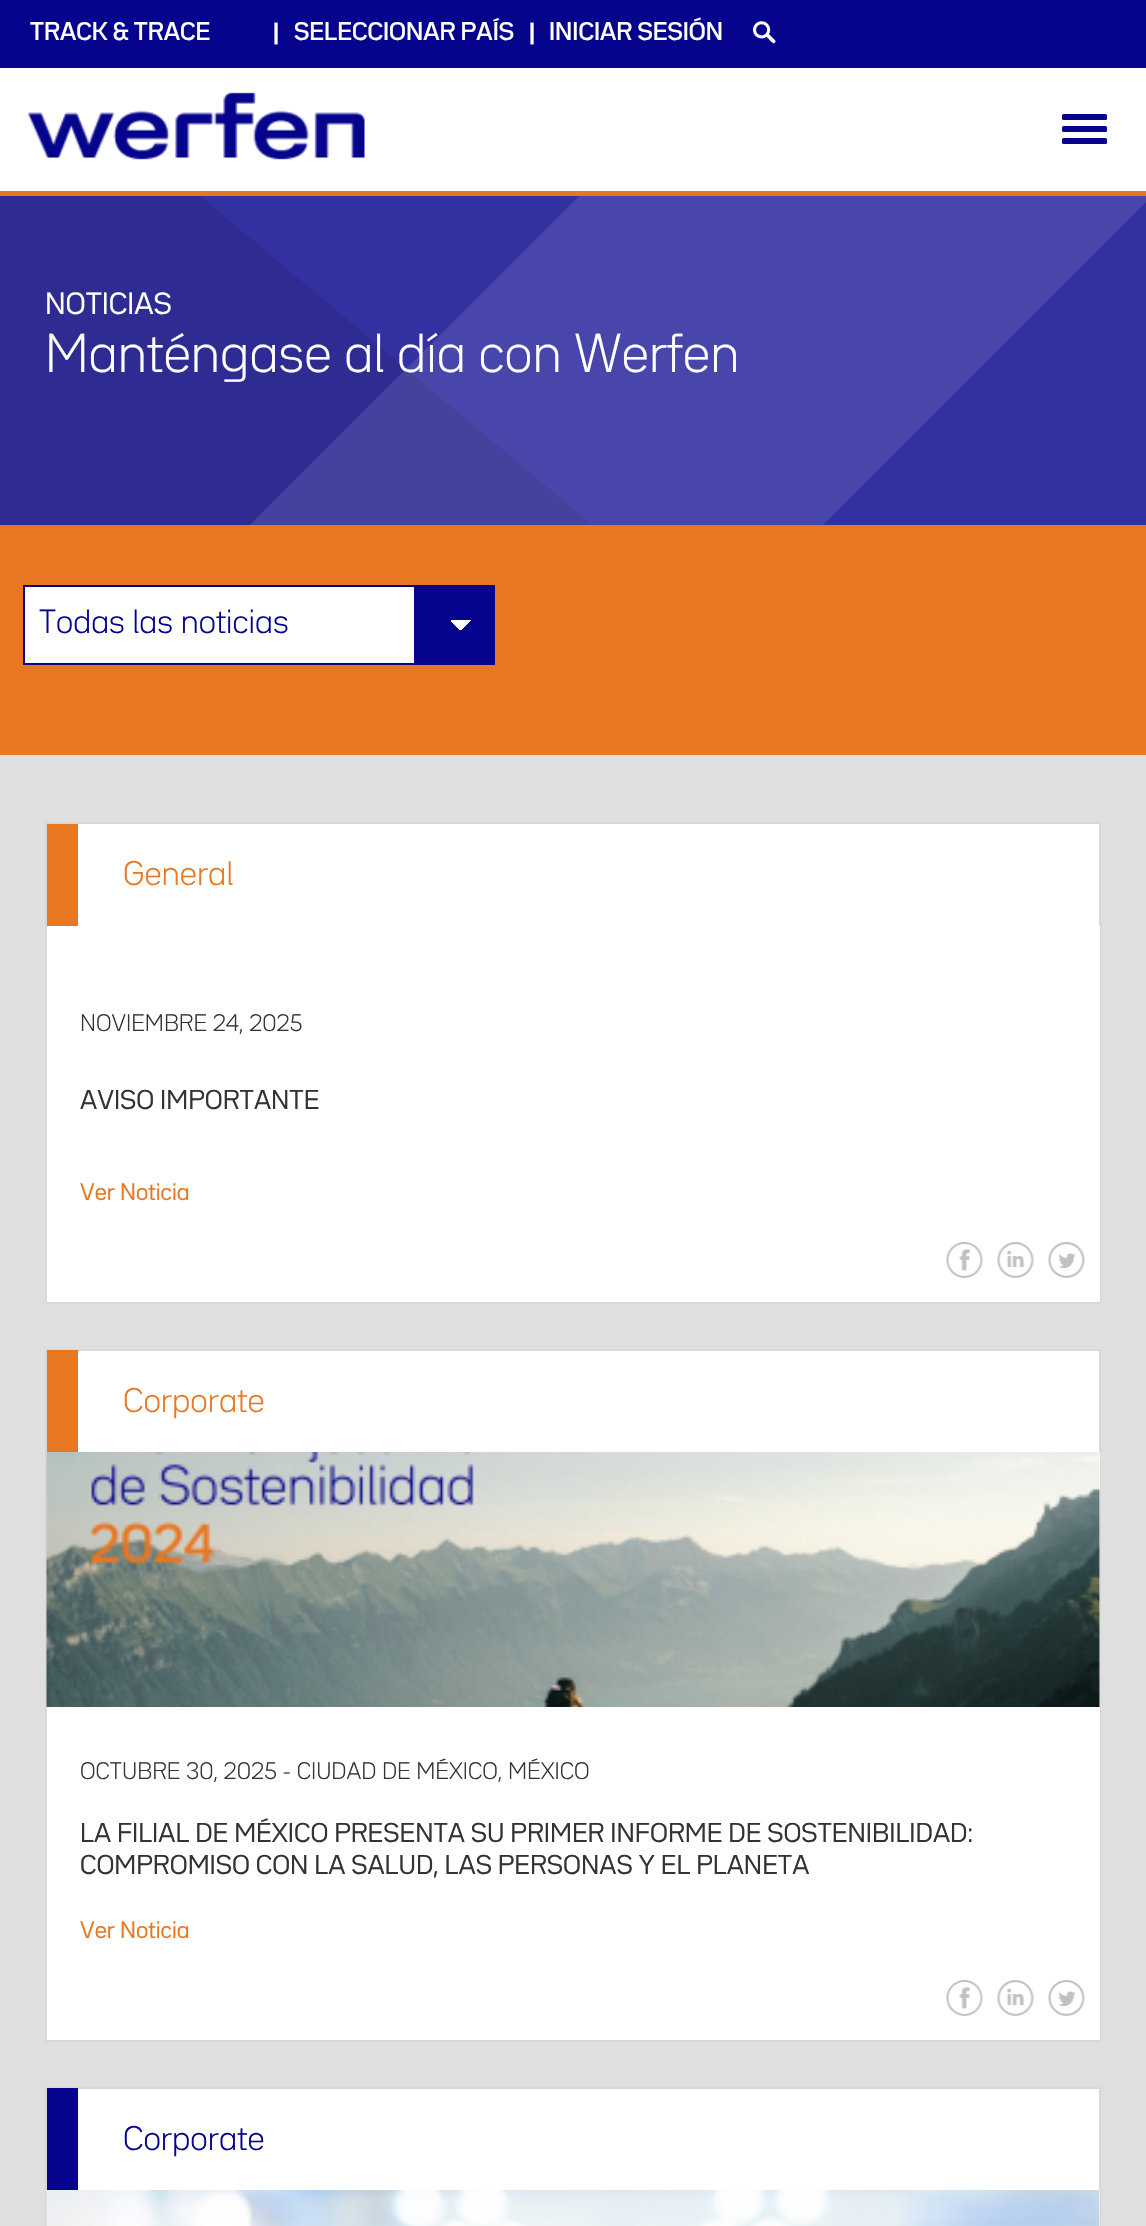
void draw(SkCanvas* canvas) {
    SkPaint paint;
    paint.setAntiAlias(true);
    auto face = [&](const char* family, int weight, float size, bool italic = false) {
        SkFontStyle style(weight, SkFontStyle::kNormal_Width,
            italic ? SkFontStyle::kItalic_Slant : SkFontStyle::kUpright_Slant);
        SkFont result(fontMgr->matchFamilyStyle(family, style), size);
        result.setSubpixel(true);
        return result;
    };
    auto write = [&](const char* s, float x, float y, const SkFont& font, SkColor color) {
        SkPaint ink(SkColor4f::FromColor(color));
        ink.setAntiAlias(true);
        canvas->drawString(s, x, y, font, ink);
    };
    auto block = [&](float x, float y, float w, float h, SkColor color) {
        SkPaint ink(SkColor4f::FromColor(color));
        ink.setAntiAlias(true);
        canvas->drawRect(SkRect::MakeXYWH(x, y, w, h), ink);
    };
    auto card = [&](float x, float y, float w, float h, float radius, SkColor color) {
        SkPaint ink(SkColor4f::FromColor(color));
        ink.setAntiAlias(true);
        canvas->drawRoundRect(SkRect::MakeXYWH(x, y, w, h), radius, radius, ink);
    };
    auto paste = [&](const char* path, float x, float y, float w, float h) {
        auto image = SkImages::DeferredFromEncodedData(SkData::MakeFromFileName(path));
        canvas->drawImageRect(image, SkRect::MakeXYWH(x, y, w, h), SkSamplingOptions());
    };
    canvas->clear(SK_ColorWHITE);
    block(0, 0, 1146, 68, SkColorSetRGB(6, 3, 141));
    auto kFont1 = face("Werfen", 500, 22.5f);
    write("TRACK & TRACE", 30, 40, kFont1, SK_ColorWHITE);
    auto kFont2 = face("Werfen", 700, 21);
    write("|", 273, 40, kFont2, SK_ColorWHITE);
    write("SELECCIONAR PAÍS", 294, 40, kFont1, SK_ColorWHITE);
    write("|", 529, 40, kFont2, SK_ColorWHITE);
    write("INICIAR SESIÓN", 549, 40, kFont1, SK_ColorWHITE);
    paste("pic1.png", 753, 21, 23, 23);
    block(200, 196, 946, 329, SkColorSetRGB(51, 49, 162));
    canvas->save();
    canvas->clipRect(SkRect::MakeXYWH(0, 195, 1146, 330));
    paint.setColor(SkColorSetRGB(46, 44, 146));
    canvas->drawPath(SkPathBuilder().moveTo(-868, 69).lineTo(49, 69).lineTo(639, 564).lineTo(-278, 564).close().detach(), paint);
    paint.setColor(SkColorSetARGB(26, 255, 255, 255));
    canvas->drawPath(SkPathBuilder().moveTo(706, 69).lineTo(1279, 69).lineTo(784, 564).lineTo(211, 564).close().detach(), paint);
    canvas->restore();
    block(0, 191, 1146, 5, SkColorSetRGB(232, 119, 34));
    paste("pic2.png", 28, 92, 337, 68);
    card(1062, 114, 45, 6, 1.5f, SkColorSetRGB(6, 3, 141));
    card(1062, 126, 45, 6, 1.5f, SkColorSetRGB(6, 3, 141));
    card(1062, 138, 45, 6, 1.5f, SkColorSetRGB(6, 3, 141));
    auto kFont3 = face("Werfen", 400, 27);
    write("NOTICIAS", 45, 314, kFont3, SK_ColorWHITE);
    auto kFont4 = face("Werfen", 300, 48);
    write("Manténgase al día con Werfen", 45, 372, kFont4, SK_ColorWHITE);
    block(0, 525, 1146, 230, SkColorSetRGB(232, 119, 34));
    block(25, 587, 389, 76, SK_ColorWHITE);
    block(414, 587, 79, 76, SkColorSetRGB(6, 3, 141));
    {
        const SkColor colors[] = {SK_ColorWHITE, SkColorSetRGB(6, 3, 141)};
        const float stops[] = {0.5f, 0.5f};
        const SkPoint ends[] = {{461, 619}, {473, 631}};
        paint.setShader(SkGradientShader::MakeLinear(ends, colors, stops, 2, SkTileMode::kClamp));
        paint.setAlpha(255);
    }
    canvas->drawRect(SkRect::MakeXYWH(461, 620, 11, 10), paint);
    {
        const SkColor colors[] = {SkColorSetRGB(6, 3, 141), SK_ColorWHITE};
        const float stops[] = {0.5f, 0.5f};
        const SkPoint ends[] = {{449, 631}, {461, 619}};
        paint.setShader(SkGradientShader::MakeLinear(ends, colors, stops, 2, SkTileMode::kClamp));
        paint.setAlpha(255);
    }
    canvas->drawRect(SkRect::MakeXYWH(451, 620, 10, 10), paint);
    paint.setStyle(SkPaint::kStroke_Style);
    paint.setStrokeWidth(2);
    paint.setShader(nullptr);
    paint.setColor(SkColorSetRGB(6, 3, 141));
    canvas->drawRect(SkRect::MakeXYWH(24, 586, 470, 78), paint);
    auto kFont5 = face("Werfen", 300, 29.5f);
    write("Todas las noticias", 39, 633, kFont5, SkColorSetRGB(6, 3, 141));
    block(0, 755, 1146, 1471, SkColorSetRGB(223, 223, 223));
    block(78, 824, 1021, 102, SK_ColorWHITE);
    paint.setColor(SkColorSetRGB(216, 216, 216));
    canvas->drawRect(SkRect::MakeXYWH(46, 823, 1054, 480), paint);
    block(47, 824, 31, 102, SkColorSetRGB(232, 119, 34));
    auto kFont6 = face("Werfen", 300, 30);
    write("General", 123, 885, kFont6, SkColorSetRGB(232, 119, 34));
    block(47, 926, 1053, 376, SK_ColorWHITE);
    auto kFont7 = face("Werfen", 300, 21);
    write("NOVIEMBRE 24, 2025", 80, 1031, kFont7, SkColorSetRGB(51, 51, 51));
    auto kFont8 = face("Werfen", 400, 24);
    write("AVISO IMPORTANTE", 80, 1109, kFont8, SkColorSetRGB(51, 51, 51));
    auto kFont9 = face("Werfen", 400, 21);
    write("Ver Noticia", 80, 1200, kFont9, SkColorSetRGB(232, 119, 34));
    paste("pic3.png", 946, 1242, 37, 36);
    paste("pic4.png", 997, 1242, 37, 36);
    paste("pic5.png", 1048, 1242, 37, 36);
    block(78, 1351, 1021, 101, SK_ColorWHITE);
    canvas->drawRect(SkRect::MakeXYWH(46, 1350, 1054, 691), paint);
    block(47, 1350, 31, 102, SkColorSetRGB(232, 119, 34));
    write("Corporate", 123, 1412, kFont6, SkColorSetRGB(232, 119, 34));
    block(47, 1452, 1053, 588, SK_ColorWHITE);
    paste("pic6.png", 46, 1452, 1054, 255);
    write("OCTUBRE 30, 2025 - CIUDAD DE MÉXICO, MÉXICO", 80, 1779, kFont7, SkColorSetRGB(51, 51, 51));
    write("LA FILIAL DE MÉXICO PRESENTA SU PRIMER INFORME DE SOSTENIBILIDAD:", 80, 1842, kFont8, SkColorSetRGB(51, 51, 51));
    write("COMPROMISO CON LA SALUD, LAS PERSONAS Y EL PLANETA", 80, 1874, kFont8, SkColorSetRGB(51, 51, 51));
    write("Ver Noticia", 80, 1938, kFont9, SkColorSetRGB(232, 119, 34));
    paste("pic3.png", 946, 1980, 37, 36);
    paste("pic4.png", 997, 1980, 37, 36);
    paste("pic5.png", 1048, 1980, 37, 36);
    block(78, 2089, 1021, 101, SK_ColorWHITE);
    canvas->drawRect(SkRect::MakeXYWH(46, 2088, 1054, 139), paint);
    block(47, 2088, 31, 102, SkColorSetRGB(6, 3, 141));
    write("Corporate", 123, 2150, kFont6, SkColorSetRGB(6, 3, 141));
    block(1099, 2190, 1, 36, SK_ColorWHITE);
    paste("pic7.png", 46, 2190, 1054, 36);
}
